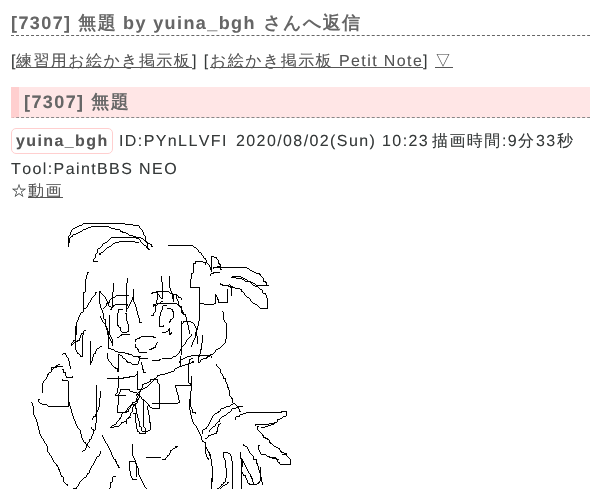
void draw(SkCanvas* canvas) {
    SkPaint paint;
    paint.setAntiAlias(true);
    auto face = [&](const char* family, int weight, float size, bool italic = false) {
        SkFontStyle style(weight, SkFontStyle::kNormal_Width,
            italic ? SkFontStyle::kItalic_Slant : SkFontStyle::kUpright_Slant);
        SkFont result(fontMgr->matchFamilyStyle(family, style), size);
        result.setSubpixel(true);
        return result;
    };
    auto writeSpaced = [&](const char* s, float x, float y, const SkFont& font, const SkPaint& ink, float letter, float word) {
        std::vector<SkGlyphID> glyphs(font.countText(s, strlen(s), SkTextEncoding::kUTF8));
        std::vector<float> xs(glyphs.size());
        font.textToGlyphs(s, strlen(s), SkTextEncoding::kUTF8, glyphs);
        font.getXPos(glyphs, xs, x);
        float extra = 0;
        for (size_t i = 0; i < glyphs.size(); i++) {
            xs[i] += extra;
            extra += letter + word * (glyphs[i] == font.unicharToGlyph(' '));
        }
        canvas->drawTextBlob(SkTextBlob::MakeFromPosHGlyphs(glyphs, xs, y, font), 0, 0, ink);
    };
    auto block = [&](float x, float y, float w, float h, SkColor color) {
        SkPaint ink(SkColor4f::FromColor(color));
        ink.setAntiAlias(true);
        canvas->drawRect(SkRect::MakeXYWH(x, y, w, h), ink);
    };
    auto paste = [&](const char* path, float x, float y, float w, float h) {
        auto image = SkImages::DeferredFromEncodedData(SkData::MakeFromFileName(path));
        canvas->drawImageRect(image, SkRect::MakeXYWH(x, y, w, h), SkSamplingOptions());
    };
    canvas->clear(SK_ColorWHITE);
    paint.setStyle(SkPaint::kStroke_Style);
    paint.setStrokeWidth(1);
    paint.setColor(SkColorSetRGB(102, 102, 102));
    paint.setPathEffect(SkDashPathEffect::Make({{3, 2.01f}}, 0));
    canvas->drawPath(SkPathBuilder().moveTo(11, 35.5f).lineTo(590, 35.5f).detach(), paint);
    paint.setPathEffect(nullptr);
    auto kFont1 = face("Liberation Sans", 700, 18);
    paint.setStyle(SkPaint::kFill_Style);
    writeSpaced("[7307]", 11, 29, kFont1, paint, 1.4f, 0);
    auto kFont2 = face("WenQuanYi Zen Hei", 700, 18);
    writeSpaced("無題", 78, 29, kFont2, paint, 1.4f, 0);
    writeSpaced("by yuina_bgh", 123, 29, kFont1, paint, 1.4f, 0);
    writeSpaced("さんへ返信", 263, 29, kFont2, paint, 1.4f, 0);
    auto kFont3 = face("Liberation Sans", 400, 16);
    paint.setColor(SkColorSetRGB(54, 58, 58));
    writeSpaced("[", 11, 66, kFont3, paint, 1.4f, 0);
    block(16, 67, 176, 1, SkColorSetRGB(85, 85, 85));
    auto kFont4 = face("WenQuanYi Zen Hei", 500, 16);
    paint.setColor(SkColorSetRGB(85, 85, 85));
    writeSpaced("練習用お絵かき掲示板", 16, 66, kFont4, paint, 1.4f, 0);
    paint.setColor(SkColorSetRGB(54, 58, 58));
    writeSpaced("] [", 192, 66, kFont3, paint, 1.4f, 0);
    block(210, 67, 213, 1, SkColorSetRGB(85, 85, 85));
    paint.setColor(SkColorSetRGB(85, 85, 85));
    writeSpaced("お絵かき掲示板", 210, 66, kFont4, paint, 1.4f, 0);
    writeSpaced("Petit Note", 339, 66, kFont3, paint, 1.4f, 0);
    paint.setColor(SkColorSetRGB(54, 58, 58));
    writeSpaced("]", 423, 66, kFont3, paint, 1.4f, 0);
    paint.setColor(SkColorSetRGB(85, 85, 85));
    writeSpaced("▽", 435, 66, kFont4, paint, 1.4f, 0);
    block(435, 67, 18, 1, SkColorSetRGB(85, 85, 85));
    block(14, 87, 576, 31, SkColorSetRGB(255, 230, 230));
    paint.setStyle(SkPaint::kStroke_Style);
    paint.setColor(SkColorSetRGB(136, 136, 136));
    paint.setPathEffect(SkDashPathEffect::Make({{3, 2.01f}}, 0));
    canvas->drawPath(SkPathBuilder().moveTo(11, 117.5f).lineTo(590, 117.5f).detach(), paint);
    paint.setPathEffect(nullptr);
    paint.setStyle(SkPaint::kFill_Style);
    paint.setColor(SkColorSetRGB(255, 207, 207));
    canvas->drawPath(SkPathBuilder().moveTo(11, 118).lineTo(11, 87).lineTo(19, 87).lineTo(19, 117).close().detach(), paint);
    paint.setColor(SkColorSetRGB(102, 102, 102));
    writeSpaced("[7307]", 24, 108, kFont1, paint, 1.4f, 0);
    writeSpaced("無題", 91, 108, kFont2, paint, 1.4f, 0);
    paint.setStyle(SkPaint::kStroke_Style);
    paint.setColor(SkColorSetRGB(255, 207, 207));
    canvas->drawRoundRect(SkRect::MakeXYWH(11.5f, 128.5f, 101, 25), 4.5f, 4.5f, paint);
    auto kFont5 = face("Liberation Sans", 700, 16);
    paint.setStyle(SkPaint::kFill_Style);
    paint.setColor(SkColorSetRGB(85, 85, 85));
    writeSpaced("yuina_bgh", 16, 146, kFont5, paint, 1.4f, 0);
    paint.setColor(SkColorSetRGB(54, 58, 58));
    writeSpaced("ID:PYnLLVFI", 119, 146, kFont3, paint, 1.4f, 0);
    writeSpaced("2020/08/02(Sun) 10:23", 236, 146, kFont3, paint, 1.4f, 0);
    writeSpaced("描画時間", 432, 146, kFont4, paint, 1.4f, 0);
    writeSpaced(":9", 502, 146, kFont3, paint, 1.4f, 0);
    writeSpaced("分", 518, 146, kFont4, paint, 1.4f, 0);
    writeSpaced("33", 536, 146, kFont3, paint, 1.4f, 0);
    writeSpaced("秒", 557, 146, kFont4, paint, 1.4f, 0);
    writeSpaced("Tool:PaintBBS NEO", 11, 174, kFont3, paint, 1.4f, 0);
    writeSpaced("☆", 11, 196, kFont4, paint, 1.4f, 0);
    block(28, 197, 35, 1, SkColorSetRGB(85, 85, 85));
    paint.setColor(SkColorSetRGB(85, 85, 85));
    writeSpaced("動画", 28, 196, kFont4, paint, 1.4f, 0);
    paste("pic1.png", 31, 223, 260, 266);
}
